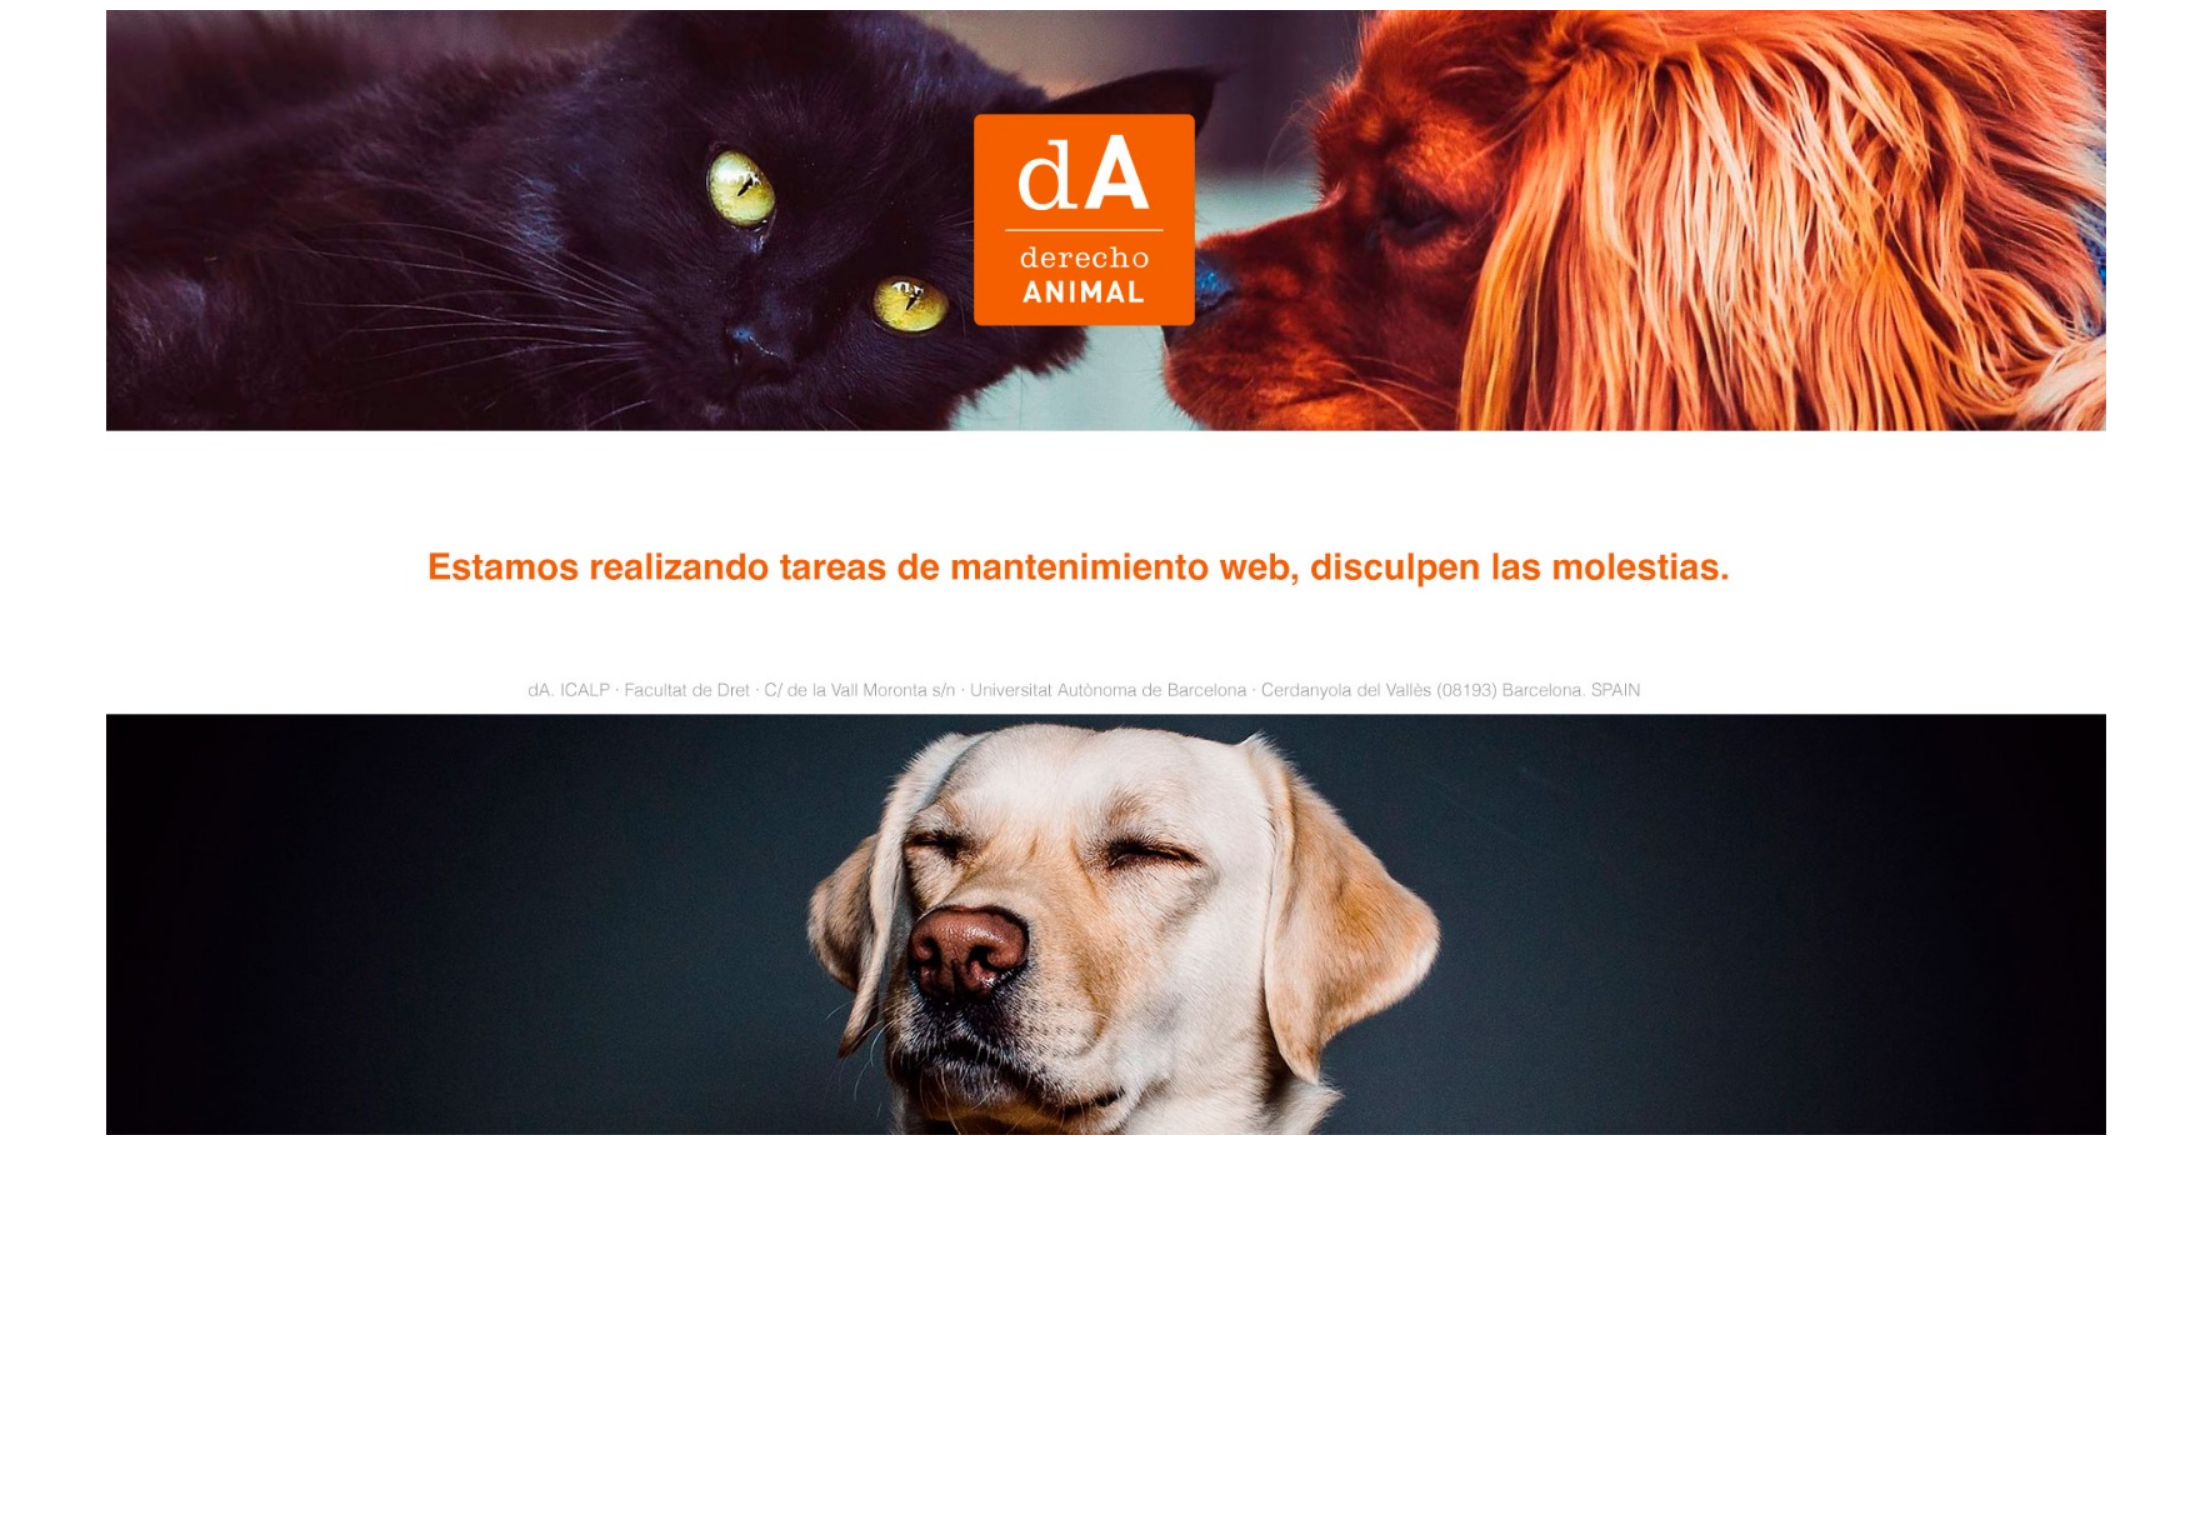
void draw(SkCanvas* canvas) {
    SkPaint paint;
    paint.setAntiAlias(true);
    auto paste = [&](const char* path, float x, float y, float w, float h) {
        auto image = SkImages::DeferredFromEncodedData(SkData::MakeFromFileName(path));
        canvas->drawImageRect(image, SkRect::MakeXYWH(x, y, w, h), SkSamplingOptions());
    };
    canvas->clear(SK_ColorWHITE);
    paste("pic1.png", 106, 10, 2001, 1125);
}
